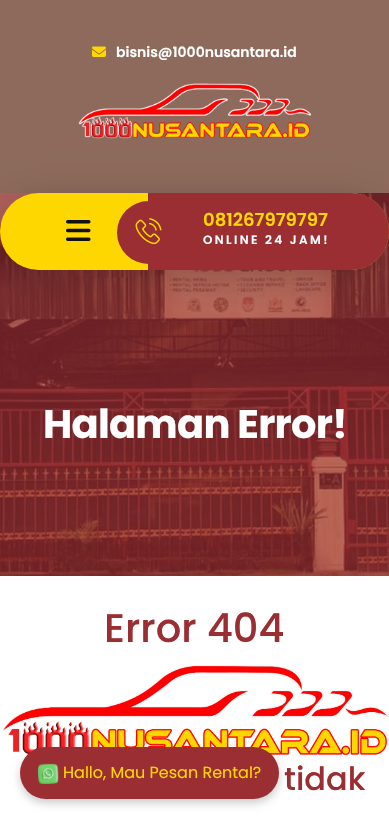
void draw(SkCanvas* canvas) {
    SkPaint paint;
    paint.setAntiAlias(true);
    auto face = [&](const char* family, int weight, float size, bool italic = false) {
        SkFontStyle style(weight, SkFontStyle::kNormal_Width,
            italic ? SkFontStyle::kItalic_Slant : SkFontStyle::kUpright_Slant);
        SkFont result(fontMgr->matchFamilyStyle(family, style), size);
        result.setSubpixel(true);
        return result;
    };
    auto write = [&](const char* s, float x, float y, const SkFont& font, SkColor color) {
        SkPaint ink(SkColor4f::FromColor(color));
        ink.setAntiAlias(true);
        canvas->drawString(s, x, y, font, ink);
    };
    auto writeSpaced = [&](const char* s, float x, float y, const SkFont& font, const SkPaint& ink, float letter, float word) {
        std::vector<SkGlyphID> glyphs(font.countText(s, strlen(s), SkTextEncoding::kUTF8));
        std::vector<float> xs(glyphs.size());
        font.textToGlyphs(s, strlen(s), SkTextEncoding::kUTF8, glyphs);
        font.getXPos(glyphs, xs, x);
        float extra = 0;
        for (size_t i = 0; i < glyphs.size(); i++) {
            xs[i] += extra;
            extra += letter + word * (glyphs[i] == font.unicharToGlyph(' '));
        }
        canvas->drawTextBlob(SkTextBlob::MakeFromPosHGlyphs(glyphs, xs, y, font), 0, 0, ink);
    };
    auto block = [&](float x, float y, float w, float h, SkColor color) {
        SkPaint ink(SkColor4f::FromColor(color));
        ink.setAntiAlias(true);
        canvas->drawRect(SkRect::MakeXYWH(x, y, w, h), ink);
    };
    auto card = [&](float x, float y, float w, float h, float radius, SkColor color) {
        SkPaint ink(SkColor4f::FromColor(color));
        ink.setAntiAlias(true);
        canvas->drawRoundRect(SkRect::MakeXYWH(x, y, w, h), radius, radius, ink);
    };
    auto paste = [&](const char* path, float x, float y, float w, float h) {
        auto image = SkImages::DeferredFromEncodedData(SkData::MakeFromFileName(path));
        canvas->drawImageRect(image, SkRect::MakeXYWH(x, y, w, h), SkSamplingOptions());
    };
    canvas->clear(SK_ColorWHITE);
    block(0, 0, 389, 193, SkColorSetRGB(141, 106, 92));
    paste("pic1.png", 92, 46, 14, 11);
    auto kFont1 = face("Poppins", 600, 14);
    write("bisnis@1000nusantara.id", 116, 57, kFont1, SK_ColorWHITE);
    paste("pic2.png", 78, 83, 233, 56);
    paste("pic5.png", 0, 193, 389, 383);
    paint.setColor(SkColorSetARGB(51, 0, 0, 0));
    paint.setMaskFilter(SkMaskFilter::MakeBlur(kNormal_SkBlurStyle, 20));
    canvas->drawRoundRect(SkRect::MakeXYWH(0, 203, 389, 77), 38.5f, 38.5f, paint);
    paint.setMaskFilter(nullptr);
    card(0, 193, 389, 77, 38.5f, SkColorSetRGB(255, 215, 0));
    paste("pic3.png", 66, 220, 25, 21);
    paint.setColor(SkColorSetRGB(154, 46, 51));
    canvas->drawPath(SkPathBuilder().moveTo(148, 193).lineTo(350.5f, 193).cubicTo(372, 193, 389, 210, 389, 231.5f).cubicTo(389, 253, 372, 270, 350.5f, 270).lineTo(148, 270).close().detach(), paint);
    canvas->drawCircle(148.5f, 232.5f, 31.5f, paint);
    paste("pic4.png", 135, 218, 27, 27);
    auto kFont2 = face("Poppins", 600, 18);
    write("081267979797", 203, 226, kFont2, SkColorSetRGB(255, 215, 0));
    auto kFont3 = face("Poppins", 600, 12);
    paint.setColor(SK_ColorWHITE);
    writeSpaced("ONLINE 24 JAM!", 203, 244, kFont3, paint, 2.4f, 0);
    auto kFont4 = face("Poppins", 700, 40);
    writeSpaced("Halaman Error!", 43, 438, kFont4, paint, -0.75f, 0);
    auto kFont5 = face("Poppins", 500, 40);
    write("Error 404", 104, 642, kFont5, SkColorSetRGB(154, 46, 51));
    paste("pic6.png", 2, 664, 387, 91);
    auto kFont6 = face("Poppins", 500, 32);
    write("tidak", 284, 790, kFont6, SkColorSetRGB(154, 46, 51));
    paint.setColor(SkColorSetARGB(51, 0, 0, 0));
    paint.setMaskFilter(SkMaskFilter::MakeBlur(kNormal_SkBlurStyle, 4));
    canvas->drawRoundRect(SkRect::MakeXYWH(20, 751, 259, 52), 26, 26, paint);
    paint.setMaskFilter(nullptr);
    card(20, 747, 259, 52, 26, SkColorSetRGB(154, 46, 51));
    paste("pic7.png", 38, 763, 21, 21);
    auto kFont7 = face("Poppins", 400, 16);
    write("Hallo, Mau Pesan Rental?", 63, 778, kFont7, SkColorSetRGB(255, 215, 0));
}
